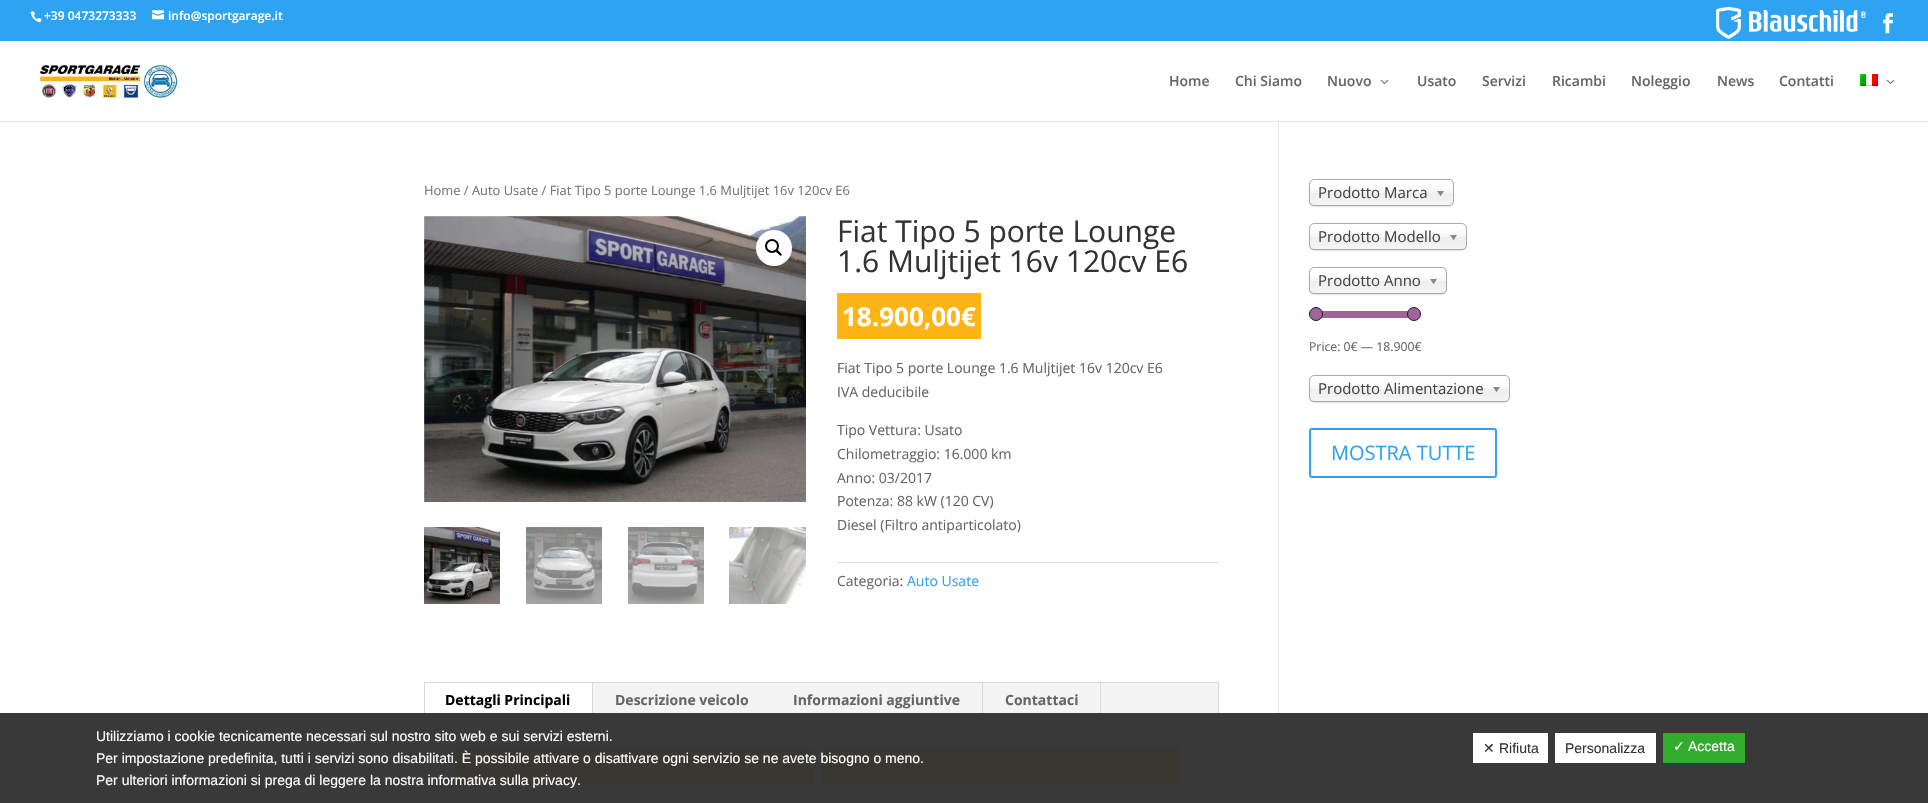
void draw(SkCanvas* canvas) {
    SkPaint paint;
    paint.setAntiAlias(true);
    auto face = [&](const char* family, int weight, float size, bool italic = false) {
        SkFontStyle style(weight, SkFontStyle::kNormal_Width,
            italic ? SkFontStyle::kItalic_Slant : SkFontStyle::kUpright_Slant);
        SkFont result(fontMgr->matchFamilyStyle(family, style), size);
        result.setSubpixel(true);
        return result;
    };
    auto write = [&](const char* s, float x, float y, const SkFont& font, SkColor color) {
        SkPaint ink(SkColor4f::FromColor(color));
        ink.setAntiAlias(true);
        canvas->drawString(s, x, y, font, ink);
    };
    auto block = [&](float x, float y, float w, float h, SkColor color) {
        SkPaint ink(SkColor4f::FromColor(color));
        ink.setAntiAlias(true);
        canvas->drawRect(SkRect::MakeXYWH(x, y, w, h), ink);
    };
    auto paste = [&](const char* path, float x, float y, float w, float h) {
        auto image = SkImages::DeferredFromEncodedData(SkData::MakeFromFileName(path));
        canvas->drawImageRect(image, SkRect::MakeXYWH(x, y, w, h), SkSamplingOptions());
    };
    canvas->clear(SK_ColorWHITE);
    block(0, 121, 1928, 1, SkColorSetRGB(230, 230, 230));
    block(0, 0, 1928, 41, SkColorSetRGB(46, 163, 242));
    paste("pic1.png", 30, 11, 12, 12);
    auto kFont1 = face("Open Sans", 600, 12);
    write("+39 0473273333", 44, 20, kFont1, SK_ColorWHITE);
    paste("pic2.png", 152, 10, 12, 10);
    write("info@sportgarage.it", 168, 20, kFont1, SK_ColorWHITE);
    paste("pic3.png", 1716, 7, 150, 32);
    paste("pic4.png", 1883, 13, 10, 21);
    paste("pic5.png", 39, 64, 140, 35);
    auto kFont2 = face("Open Sans", 600, 14);
    write("Home", 1169, 86, kFont2, SkColorSetRGB(102, 102, 102));
    write("Chi Siamo", 1235, 86, kFont2, SkColorSetRGB(102, 102, 102));
    write("Nuovo", 1327, 86, kFont2, SkColorSetRGB(102, 102, 102));
    paste("pic6.png", 1380, 79, 9, 5);
    write("Usato", 1417, 86, kFont2, SkColorSetRGB(102, 102, 102));
    write("Servizi", 1482, 86, kFont2, SkColorSetRGB(102, 102, 102));
    write("Ricambi", 1552, 86, kFont2, SkColorSetRGB(102, 102, 102));
    write("Noleggio", 1631, 86, kFont2, SkColorSetRGB(102, 102, 102));
    write("News", 1717, 86, kFont2, SkColorSetRGB(102, 102, 102));
    write("Contatti", 1779, 86, kFont2, SkColorSetRGB(102, 102, 102));
    paste("pic7.png", 1860, 74, 18, 12);
    paste("pic6.png", 1886, 79, 9, 5);
    block(1278, 121, 1, 682, SkColorSetRGB(226, 226, 226));
    block(1278, 121, 1, 1, SkColorSetRGB(203, 203, 203));
    auto kFont3 = face("Open Sans", 400, 12.9f);
    write("Home / Auto Usate / Fiat Tipo 5 porte Lounge 1.6 Muljtijet 16v 120cv E6", 424, 195, kFont3, SkColorSetRGB(118, 118, 118));
    paste("pic8.png", 424, 216, 382, 286);
    paint.setColor(SK_ColorWHITE);
    canvas->drawCircle(774, 248, 18, paint);
    paint.setStyle(SkPaint::kStroke_Style);
    paint.setStrokeWidth(2);
    paint.setColor(SK_ColorBLACK);
    canvas->drawCircle(772, 246, 6, paint);
    paint.setStyle(SkPaint::kFill_Style);
    canvas->drawPath(SkPathBuilder().moveTo(776, 250).cubicTo(777, 248.5f, 779, 251.5f, 779.5f, 252).cubicTo(780, 252.5f, 782.5f, 254.5f, 781.5f, 255.5f).cubicTo(780.5f, 256.5f, 778.5f, 254, 778, 253.5f).cubicTo(777.5f, 253, 774.5f, 251, 776, 250).close().detach(), paint);
    paste("pic9.png", 424, 527, 76, 77);
    paste("pic10.png", 526, 527, 76, 77);
    paste("pic11.png", 628, 527, 76, 77);
    paste("pic12.png", 729, 527, 77, 77);
    auto kFont4 = face("Open Sans", 400, 30);
    write("Fiat Tipo 5 porte Lounge", 837, 242, kFont4, SkColorSetRGB(51, 51, 51));
    write("1.6 Muljtijet 16v 120cv E6", 837, 272, kFont4, SkColorSetRGB(51, 51, 51));
    block(837, 293, 144, 46, SkColorSetRGB(254, 180, 21));
    auto kFont5 = face("Open Sans", 700, 26);
    write("18.900,00€", 842, 326, kFont5, SK_ColorWHITE);
    auto kFont6 = face("Open Sans", 400, 14);
    write("Fiat Tipo 5 porte Lounge 1.6 Muljtijet 16v 120cv E6", 837, 373, kFont6, SkColorSetRGB(102, 102, 102));
    write("IVA deducibile", 837, 397, kFont6, SkColorSetRGB(102, 102, 102));
    write("Tipo Vettura: Usato", 837, 435, kFont6, SkColorSetRGB(102, 102, 102));
    write("Chilometraggio: 16.000 km", 837, 459, kFont6, SkColorSetRGB(102, 102, 102));
    write("Anno: 03/2017", 837, 483, kFont6, SkColorSetRGB(102, 102, 102));
    write("Potenza: 88 kW (120 CV)", 837, 506, kFont6, SkColorSetRGB(102, 102, 102));
    write("Diesel (Filtro antiparticolato)", 837, 530, kFont6, SkColorSetRGB(102, 102, 102));
    block(837, 562, 382, 1, SkColorSetRGB(218, 218, 218));
    write("Categoria:", 837, 586, kFont6, SkColorSetRGB(102, 102, 102));
    write("Auto Usate", 907, 586, kFont6, SkColorSetRGB(46, 163, 242));
    paint.setStyle(SkPaint::kStroke_Style);
    paint.setStrokeWidth(1);
    paint.setColor(SkColorSetRGB(217, 217, 217));
    canvas->drawRect(SkRect::MakeXYWH(424.5f, 682.5f, 794, 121), paint);
    block(593, 683, 625, 33, SkColorSetRGB(244, 244, 244));
    block(592, 683, 1, 34, SkColorSetRGB(217, 217, 217));
    auto kFont7 = face("Open Sans", 700, 14);
    write("Dettagli Principali", 445, 705, kFont7, SK_ColorBLACK);
    write("Descrizione veicolo", 615, 705, kFont7, SkColorSetRGB(102, 102, 102));
    block(982, 683, 1, 34, SkColorSetRGB(217, 217, 217));
    write("Informazioni aggiuntive", 793, 705, kFont7, SkColorSetRGB(102, 102, 102));
    block(1100, 683, 1, 34, SkColorSetRGB(217, 217, 217));
    write("Contattaci", 1005, 705, kFont7, SkColorSetRGB(102, 102, 102));
    block(593, 716, 625, 1, SkColorSetRGB(217, 217, 217));
    block(455, 747, 359, 38, SkColorSetRGB(254, 180, 21));
    block(822, 747, 358, 38, SkColorSetRGB(254, 180, 21));
    paint.setStyle(SkPaint::kFill_Style);
    paint.setColor(SkColorSetARGB(26, 0, 0, 0));
    paint.setMaskFilter(SkMaskFilter::MakeBlur(kNormal_SkBlurStyle, 0.5f));
    canvas->drawRoundRect(SkRect::MakeXYWH(1309, 180, 145, 27), 5, 5, paint);
    paint.setMaskFilter(nullptr);
    {
        const SkColor colors[] = {SK_ColorWHITE, SkColorSetRGB(246, 246, 246), SkColorSetRGB(238, 238, 238), SkColorSetRGB(244, 244, 244)};
        const float stops[] = {0.2f, 0.5f, 0.52f, 1};
        const SkPoint ends[] = {{1382, 180}, {1382, 205}};
        paint.setShader(SkGradientShader::MakeLinear(ends, colors, stops, 4, SkTileMode::kClamp));
        paint.setAlpha(255);
    }
    canvas->drawRoundRect(SkRect::MakeXYWH(1310, 180, 143, 25), 4, 4, paint);
    paint.setStyle(SkPaint::kStroke_Style);
    paint.setShader(nullptr);
    paint.setColor(SkColorSetRGB(170, 170, 170));
    canvas->drawRoundRect(SkRect::MakeXYWH(1309.5f, 179.5f, 144, 26), 4.5f, 4.5f, paint);
    auto kFont8 = face("Open Sans", 400, 15);
    write("Prodotto Marca", 1318, 198, kFont8, SkColorSetRGB(68, 68, 68));
    paste("pic13.png", 1437, 191, 7, 6);
    paint.setStyle(SkPaint::kFill_Style);
    paint.setColor(SkColorSetARGB(26, 0, 0, 0));
    paint.setMaskFilter(SkMaskFilter::MakeBlur(kNormal_SkBlurStyle, 0.5f));
    canvas->drawRoundRect(SkRect::MakeXYWH(1309, 224, 158, 27), 5, 5, paint);
    paint.setMaskFilter(nullptr);
    {
        const SkColor colors[] = {SK_ColorWHITE, SkColorSetRGB(246, 246, 246), SkColorSetRGB(238, 238, 238), SkColorSetRGB(244, 244, 244)};
        const float stops[] = {0.2f, 0.5f, 0.52f, 1};
        const SkPoint ends[] = {{1388, 224}, {1388, 249}};
        paint.setShader(SkGradientShader::MakeLinear(ends, colors, stops, 4, SkTileMode::kClamp));
        paint.setAlpha(255);
    }
    canvas->drawRoundRect(SkRect::MakeXYWH(1310, 224, 156, 25), 4, 4, paint);
    paint.setStyle(SkPaint::kStroke_Style);
    paint.setShader(nullptr);
    paint.setColor(SkColorSetRGB(170, 170, 170));
    canvas->drawRoundRect(SkRect::MakeXYWH(1309.5f, 223.5f, 157, 26), 4.5f, 4.5f, paint);
    write("Prodotto Modello", 1318, 242, kFont8, SkColorSetRGB(68, 68, 68));
    paste("pic13.png", 1450, 235, 7, 6);
    paint.setStyle(SkPaint::kFill_Style);
    paint.setColor(SkColorSetARGB(26, 0, 0, 0));
    paint.setMaskFilter(SkMaskFilter::MakeBlur(kNormal_SkBlurStyle, 0.5f));
    canvas->drawRoundRect(SkRect::MakeXYWH(1309, 268, 138, 27), 5, 5, paint);
    paint.setMaskFilter(nullptr);
    {
        const SkColor colors[] = {SK_ColorWHITE, SkColorSetRGB(246, 246, 246), SkColorSetRGB(238, 238, 238), SkColorSetRGB(244, 244, 244)};
        const float stops[] = {0.2f, 0.5f, 0.52f, 1};
        const SkPoint ends[] = {{1378, 268}, {1378, 293}};
        paint.setShader(SkGradientShader::MakeLinear(ends, colors, stops, 4, SkTileMode::kClamp));
        paint.setAlpha(255);
    }
    canvas->drawRoundRect(SkRect::MakeXYWH(1310, 268, 136, 25), 4, 4, paint);
    paint.setStyle(SkPaint::kStroke_Style);
    paint.setShader(nullptr);
    paint.setColor(SkColorSetRGB(170, 170, 170));
    canvas->drawRoundRect(SkRect::MakeXYWH(1309.5f, 267.5f, 137, 26), 4.5f, 4.5f, paint);
    write("Prodotto Anno", 1318, 286, kFont8, SkColorSetRGB(68, 68, 68));
    paste("pic13.png", 1430, 279, 7, 6);
    block(1316, 311, 98, 7, SkColorSetRGB(164, 100, 151));
    paint.setStyle(SkPaint::kFill_Style);
    paint.setColor(SkColorSetRGB(164, 100, 151));
    canvas->drawCircle(1316, 314, 6.5f, paint);
    paint.setStyle(SkPaint::kStroke_Style);
    paint.setColor(SkColorSetRGB(20, 23, 65));
    canvas->drawCircle(1316, 314, 6.5f, paint);
    paint.setStyle(SkPaint::kFill_Style);
    paint.setColor(SkColorSetRGB(164, 100, 151));
    canvas->drawCircle(1414, 314, 6.5f, paint);
    paint.setStyle(SkPaint::kStroke_Style);
    paint.setColor(SkColorSetRGB(20, 23, 65));
    canvas->drawCircle(1414, 314, 6.5f, paint);
    auto kFont9 = face("Open Sans", 400, 12.25f);
    write("Price: 0€ — 18.900€", 1309, 351, kFont9, SkColorSetRGB(102, 102, 102));
    paint.setStyle(SkPaint::kFill_Style);
    paint.setColor(SkColorSetARGB(26, 0, 0, 0));
    paint.setMaskFilter(SkMaskFilter::MakeBlur(kNormal_SkBlurStyle, 0.5f));
    canvas->drawRoundRect(SkRect::MakeXYWH(1309, 376, 201, 27), 5, 5, paint);
    paint.setMaskFilter(nullptr);
    {
        const SkColor colors[] = {SK_ColorWHITE, SkColorSetRGB(246, 246, 246), SkColorSetRGB(238, 238, 238), SkColorSetRGB(244, 244, 244)};
        const float stops[] = {0.2f, 0.5f, 0.52f, 1};
        const SkPoint ends[] = {{1410, 376}, {1410, 401}};
        paint.setShader(SkGradientShader::MakeLinear(ends, colors, stops, 4, SkTileMode::kClamp));
        paint.setAlpha(255);
    }
    canvas->drawRoundRect(SkRect::MakeXYWH(1310, 376, 199, 25), 4, 4, paint);
    paint.setStyle(SkPaint::kStroke_Style);
    paint.setShader(nullptr);
    paint.setColor(SkColorSetRGB(170, 170, 170));
    canvas->drawRoundRect(SkRect::MakeXYWH(1309.5f, 375.5f, 200, 26), 4.5f, 4.5f, paint);
    write("Prodotto Alimentazione", 1318, 394, kFont8, SkColorSetRGB(68, 68, 68));
    paste("pic13.png", 1493, 387, 7, 6);
    paint.setStrokeWidth(2);
    paint.setColor(SkColorSetRGB(46, 163, 242));
    canvas->drawRoundRect(SkRect::MakeXYWH(1310, 429, 186, 48), 2, 2, paint);
    auto kFont10 = face("Open Sans", 400, 20);
    write("MOSTRA TUTTE", 1331, 460, kFont10, SkColorSetRGB(46, 163, 242));
    block(0, 713, 1928, 90, SkColorSetARGB(247, 51, 51, 51));
    auto kFont11 = face("Liberation Sans", 400, 14);
    write("Utilizziamo i cookie tecnicamente necessari sul nostro sito web e sui servizi esterni.", 96, 741, kFont11, SK_ColorWHITE);
    write("Per impostazione predefinita, tutti i servizi sono disabilitati. È possibile attivare o disattivare ogni servizio se ne avete bisogno o meno.", 96, 763, kFont11, SK_ColorWHITE);
    write("Per ulteriori informazioni si prega di leggere la nostra informativa sulla privacy.", 96, 785, kFont11, SK_ColorWHITE);
    block(1473, 733, 75, 30, SK_ColorWHITE);
    auto kFont12 = face("DejaVu Sans", 400, 14);
    write("✕", 1483, 753, kFont12, SkColorSetRGB(51, 51, 51));
    write("Rifiuta", 1499, 753, kFont11, SkColorSetRGB(51, 51, 51));
    block(1555, 733, 101, 30, SK_ColorWHITE);
    write("Personalizza", 1565, 753, kFont11, SkColorSetRGB(51, 51, 51));
    block(1663, 733, 82, 30, SkColorSetRGB(49, 172, 44));
    write("✓", 1673, 751, kFont12, SK_ColorWHITE);
    write("Accetta", 1688, 751, kFont11, SK_ColorWHITE);
}
